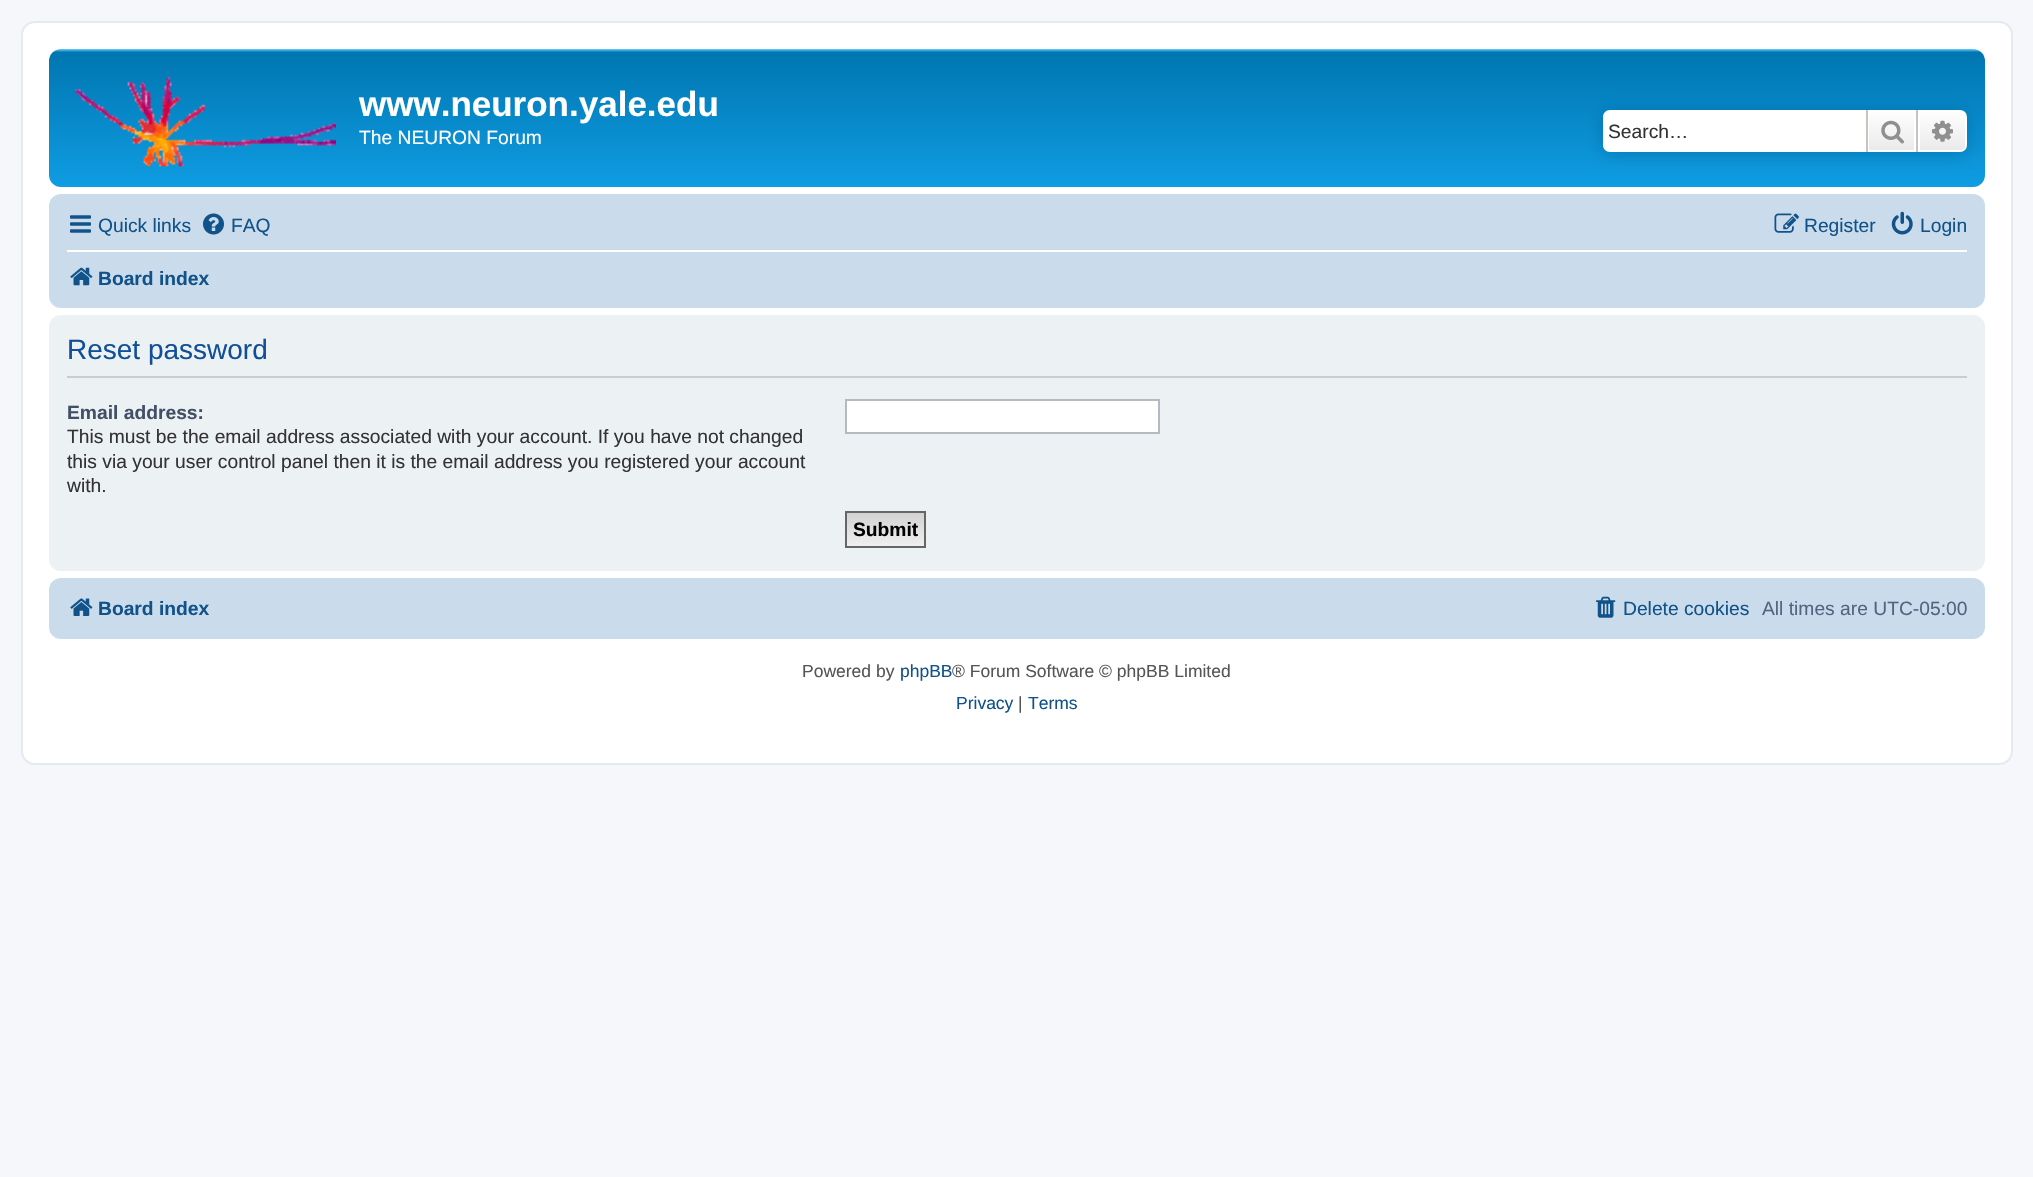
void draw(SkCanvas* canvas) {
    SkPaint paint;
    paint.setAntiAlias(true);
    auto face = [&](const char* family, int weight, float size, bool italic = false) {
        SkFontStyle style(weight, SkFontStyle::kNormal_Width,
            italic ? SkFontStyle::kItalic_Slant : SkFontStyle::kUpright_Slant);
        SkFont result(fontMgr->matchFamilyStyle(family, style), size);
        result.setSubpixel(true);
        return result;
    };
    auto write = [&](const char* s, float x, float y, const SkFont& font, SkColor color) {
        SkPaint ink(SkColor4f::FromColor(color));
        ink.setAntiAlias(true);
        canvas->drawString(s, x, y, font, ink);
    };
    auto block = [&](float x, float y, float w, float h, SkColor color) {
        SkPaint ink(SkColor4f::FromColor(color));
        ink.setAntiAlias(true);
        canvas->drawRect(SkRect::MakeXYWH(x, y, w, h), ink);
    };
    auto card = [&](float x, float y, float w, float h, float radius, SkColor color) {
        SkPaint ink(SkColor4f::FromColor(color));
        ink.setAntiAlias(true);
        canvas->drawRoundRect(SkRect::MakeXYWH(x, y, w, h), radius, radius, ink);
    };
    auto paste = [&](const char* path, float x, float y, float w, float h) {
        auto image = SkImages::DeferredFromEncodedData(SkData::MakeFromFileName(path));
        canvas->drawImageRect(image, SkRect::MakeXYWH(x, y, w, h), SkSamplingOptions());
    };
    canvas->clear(SkColorSetRGB(245, 247, 250));
    paint.setColor(SK_ColorWHITE);
    canvas->drawRoundRect(SkRect::MakeXYWH(22, 22, 1990, 742), 13, 13, paint);
    paint.setStyle(SkPaint::kStroke_Style);
    paint.setStrokeWidth(2);
    paint.setColor(SkColorSetRGB(230, 233, 237));
    canvas->drawRoundRect(SkRect::MakeXYWH(22, 22, 1990, 742), 13, 13, paint);
    paint.setStyle(SkPaint::kFill_Style);
    {
        const SkColor colors[] = {SkColorSetRGB(106, 206, 255), SkColorSetRGB(0, 118, 177), SkColorSetRGB(18, 163, 235)};
        const float stops[] = {0, 0.02f, 1};
        const SkPoint ends[] = {{1017, 49}, {1017, 210}};
        paint.setShader(SkGradientShader::MakeLinear(ends, colors, stops, 3, SkTileMode::kClamp));
        paint.setAlpha(255);
    }
    canvas->drawRoundRect(SkRect::MakeXYWH(49, 49, 1936, 138), 12, 12, paint);
    paste("pic1.png", 75, 76, 261, 91);
    auto kFont1 = face("Liberation Sans", 700, 35);
    write("www.neuron.yale.edu", 359, 116, kFont1, SK_ColorWHITE);
    auto kFont2 = face("Liberation Sans", 400, 19.25f);
    write("The NEURON Forum", 359, 144, kFont2, SK_ColorWHITE);
    paint.setShader(nullptr);
    paint.setColor(SkColorSetRGB(0, 117, 176));
    paint.setMaskFilter(SkMaskFilter::MakeBlur(kNormal_SkBlurStyle, 9));
    canvas->drawRoundRect(SkRect::MakeXYWH(1603, 110, 364, 42), 7, 7, paint);
    paint.setMaskFilter(nullptr);
    paint.setColor(SK_ColorWHITE);
    canvas->drawPath(SkPathBuilder().moveTo(1610, 110).lineTo(1866, 110).lineTo(1866, 152).lineTo(1610, 152).cubicTo(1606, 152, 1603, 149, 1603, 145).lineTo(1603, 117).cubicTo(1603, 113, 1606, 110, 1610, 110).close().detach(), paint);
    write("Search…", 1608, 138, kFont2, SkColorSetRGB(51, 51, 51));
    {
        const SkColor colors[] = {SK_ColorWHITE, SkColorSetRGB(233, 233, 233)};
        const float stops[] = {0, 1};
        const SkPoint ends[] = {{1892, 110}, {1892, 152}};
        paint.setShader(SkGradientShader::MakeLinear(ends, colors, stops, 2, SkTileMode::kClamp));
        paint.setAlpha(255);
    }
    canvas->drawRect(SkRect::MakeXYWH(1869, 112, 45, 38), paint);
    paint.setStyle(SkPaint::kStroke_Style);
    paint.setShader(nullptr);
    paint.setColor(SK_ColorWHITE);
    canvas->drawRect(SkRect::MakeXYWH(1868, 111, 47, 40), paint);
    block(1916, 110, 2, 42, SkColorSetRGB(199, 195, 191));
    block(1866, 110, 2, 42, SkColorSetRGB(199, 195, 191));
    paste("pic2.png", 1881, 120, 23, 24);
    paint.setStyle(SkPaint::kFill_Style);
    {
        const SkColor colors[] = {SK_ColorWHITE, SkColorSetRGB(233, 233, 233)};
        const float stops[] = {0, 1};
        const SkPoint ends[] = {{1943, 110}, {1943, 152}};
        paint.setShader(SkGradientShader::MakeLinear(ends, colors, stops, 2, SkTileMode::kClamp));
        paint.setAlpha(255);
    }
    canvas->drawPath(SkPathBuilder().moveTo(1919, 111).lineTo(1960, 111).cubicTo(1963.5f, 111, 1966, 113.5f, 1966, 117).lineTo(1966, 145).cubicTo(1966, 148.5f, 1963.5f, 151, 1960, 151).lineTo(1919, 151).close().detach(), paint);
    paint.setStyle(SkPaint::kStroke_Style);
    paint.setShader(nullptr);
    paint.setColor(SK_ColorWHITE);
    canvas->drawPath(SkPathBuilder().moveTo(1919, 111).lineTo(1960, 111).cubicTo(1963.5f, 111, 1966, 113.5f, 1966, 117).lineTo(1966, 145).cubicTo(1966, 148.5f, 1963.5f, 151, 1960, 151).lineTo(1919, 151).close().detach(), paint);
    paste("pic3.png", 1932, 120, 21, 22);
    card(49, 194, 1936, 114, 12, SkColorSetRGB(202, 220, 235));
    paste("pic4.png", 70, 215, 21, 18);
    write("Quick links", 98, 232, kFont2, SkColorSetRGB(16, 82, 137));
    paste("pic5.png", 203, 213, 21, 22);
    write("FAQ", 231, 232, kFont2, SkColorSetRGB(16, 82, 137));
    paste("pic6.png", 1774, 213, 25, 20);
    write("Register", 1804, 232, kFont2, SkColorSetRGB(16, 82, 137));
    paste("pic7.png", 1891, 211, 22, 24);
    write("Login", 1920, 232, kFont2, SkColorSetRGB(16, 82, 137));
    block(67, 250, 1900, 2, SK_ColorWHITE);
    paste("pic8.png", 70, 267, 23, 19);
    auto kFont3 = face("Liberation Sans", 700, 19.25f);
    write("Board index", 98, 285, kFont3, SkColorSetRGB(16, 82, 137));
    card(49, 315, 1936, 256, 12, SkColorSetRGB(236, 241, 243));
    block(67, 376, 1900, 2, SkColorSetRGB(204, 204, 204));
    auto kFont4 = face("Liberation Sans", 400, 28);
    write("Reset password", 67, 359, kFont4, SkColorSetRGB(17, 80, 152));
    write("Email address:", 67, 419, kFont3, SkColorSetRGB(66, 80, 103));
    write("This must be the email address associated with your account. If you have not changed", 67, 443, kFont2, SkColorSetRGB(51, 51, 51));
    write("this via your user control panel then it is the email address you registered your account", 67, 468, kFont2, SkColorSetRGB(51, 51, 51));
    canvas->save();
    canvas->clipRect(SkRect::MakeXYWH(67, 392, 1900, 112));
    write("with.", 67, 492, kFont2, SkColorSetRGB(51, 51, 51));
    canvas->restore();
    paint.setStyle(SkPaint::kFill_Style);
    canvas->drawRect(SkRect::MakeXYWH(846, 400, 313, 33), paint);
    paint.setStyle(SkPaint::kStroke_Style);
    paint.setColor(SkColorSetRGB(180, 186, 192));
    canvas->drawRect(SkRect::MakeXYWH(846, 400, 313, 33), paint);
    paint.setStyle(SkPaint::kFill_Style);
    {
        const SkColor colors[] = {SkColorSetRGB(210, 210, 210), SkColorSetRGB(239, 239, 239)};
        const float stops[] = {0, 1};
        const SkPoint ends[] = {{886, 513}, {886, 546}};
        paint.setShader(SkGradientShader::MakeLinear(ends, colors, stops, 2, SkTileMode::kClamp));
        paint.setAlpha(255);
    }
    canvas->drawRect(SkRect::MakeXYWH(847, 513, 77, 33), paint);
    paint.setStyle(SkPaint::kStroke_Style);
    paint.setShader(nullptr);
    paint.setColor(SkColorSetRGB(102, 102, 102));
    canvas->drawRect(SkRect::MakeXYWH(846, 512, 79, 35), paint);
    write("Submit", 853, 536, kFont3, SK_ColorBLACK);
    card(49, 578, 1936, 61, 12, SkColorSetRGB(202, 220, 235));
    paste("pic9.png", 70, 598, 23, 18);
    write("Board index", 98, 615, kFont3, SkColorSetRGB(16, 82, 137));
    paste("pic10.png", 1596, 596, 20, 22);
    write("Delete cookies", 1623, 615, kFont2, SkColorSetRGB(16, 82, 137));
    write("All times are UTC-05:00", 1762, 615, kFont2, SkColorSetRGB(83, 100, 130));
    auto kFont5 = face("Liberation Sans", 400, 17.5f);
    write("Powered by", 802, 677, kFont5, SkColorSetRGB(85, 85, 85));
    write("phpBB", 900, 677, kFont5, SkColorSetRGB(16, 82, 137));
    write("® Forum Software © phpBB Limited", 952, 677, kFont5, SkColorSetRGB(85, 85, 85));
    write("Privacy", 956, 709, kFont5, SkColorSetRGB(16, 82, 137));
    write("|", 1018, 709, kFont5, SkColorSetRGB(85, 85, 85));
    write("Terms", 1028, 709, kFont5, SkColorSetRGB(16, 82, 137));
}
